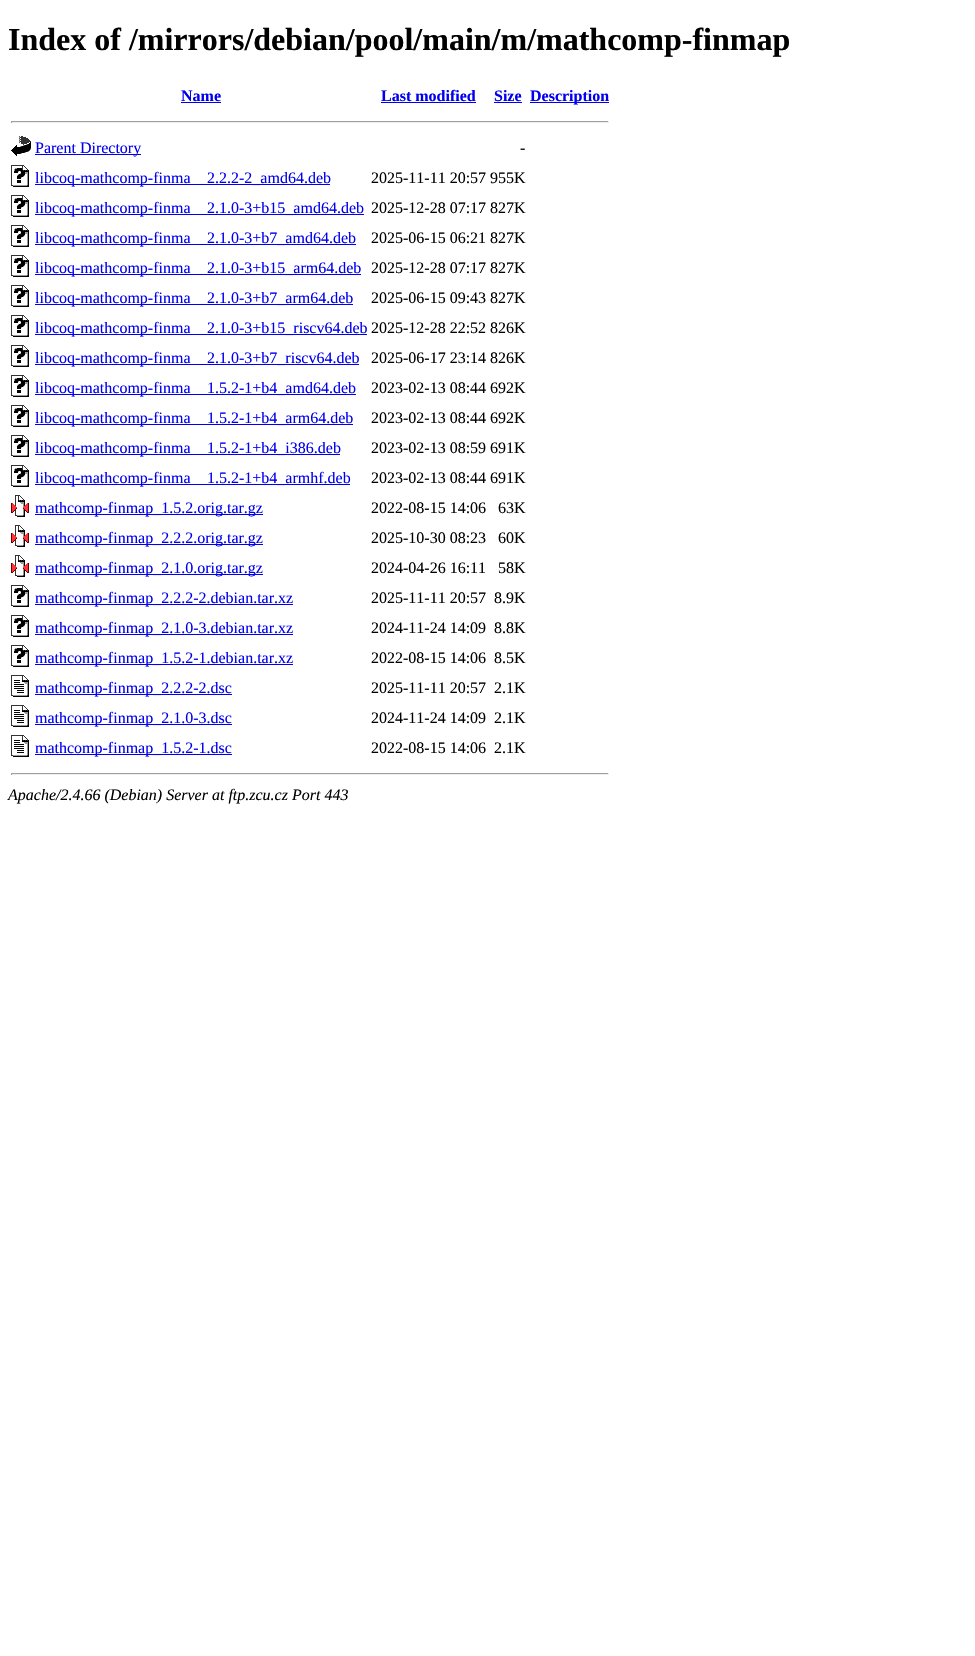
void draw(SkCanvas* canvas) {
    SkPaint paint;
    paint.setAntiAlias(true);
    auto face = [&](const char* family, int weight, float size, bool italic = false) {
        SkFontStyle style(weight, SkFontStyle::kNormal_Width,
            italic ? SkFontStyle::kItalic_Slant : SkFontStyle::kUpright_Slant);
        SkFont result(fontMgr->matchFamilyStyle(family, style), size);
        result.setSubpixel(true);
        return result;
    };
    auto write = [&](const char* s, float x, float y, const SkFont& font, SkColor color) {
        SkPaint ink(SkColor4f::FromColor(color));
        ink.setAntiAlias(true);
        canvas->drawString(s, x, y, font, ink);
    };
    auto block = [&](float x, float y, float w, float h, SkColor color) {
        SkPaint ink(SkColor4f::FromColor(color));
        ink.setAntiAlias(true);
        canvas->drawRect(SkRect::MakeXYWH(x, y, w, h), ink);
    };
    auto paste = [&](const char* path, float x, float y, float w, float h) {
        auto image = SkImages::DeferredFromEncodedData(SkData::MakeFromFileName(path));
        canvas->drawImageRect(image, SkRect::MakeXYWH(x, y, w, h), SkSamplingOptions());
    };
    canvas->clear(SK_ColorWHITE);
    auto kFont1 = face("Liberation Serif", 700, 32);
    write("Index of /mirrors/debian/pool/main/m/mathcomp-finmap", 8, 50, kFont1, SK_ColorBLACK);
    auto kFont2 = face("Liberation Serif", 700, 16);
    write("Name", 181, 101, kFont2, SkColorSetRGB(0, 0, 238));
    block(181, 102, 40, 1, SkColorSetRGB(0, 0, 238));
    write("Last modified", 381, 101, kFont2, SkColorSetRGB(0, 0, 238));
    block(381, 102, 95, 1, SkColorSetRGB(0, 0, 238));
    write("Size", 494, 101, kFont2, SkColorSetRGB(0, 0, 238));
    block(494, 102, 28, 1, SkColorSetRGB(0, 0, 238));
    block(530, 102, 79, 1, SkColorSetRGB(0, 0, 238));
    write("Description", 530, 101, kFont2, SkColorSetRGB(0, 0, 238));
    block(11, 121, 598, 1, SkColorSetRGB(159, 159, 159));
    block(608, 121, 1, 2, SkColorSetRGB(238, 238, 238));
    block(11, 122, 598, 1, SkColorSetRGB(238, 238, 238));
    block(11, 121, 1, 2, SkColorSetRGB(159, 159, 159));
    paste("pic1.png", 11, 136, 20, 20);
    block(35, 154, 106, 1, SkColorSetRGB(0, 0, 238));
    auto kFont3 = face("Liberation Serif", 400, 16);
    write("Parent Directory", 35, 153, kFont3, SkColorSetRGB(0, 0, 238));
    write("-", 520, 153, kFont3, SK_ColorBLACK);
    paste("pic2.png", 11, 165, 18, 22);
    block(35, 184, 295, 1, SkColorSetRGB(0, 0, 238));
    write("libcoq-mathcomp-finma", 35, 183, kFont3, SkColorSetRGB(0, 0, 238));
    write("2.2.2-2_amd64.deb", 207, 183, kFont3, SkColorSetRGB(0, 0, 238));
    write("2025-11-11 20:57 955K", 371, 183, kFont3, SK_ColorBLACK);
    paste("pic2.png", 11, 195, 18, 22);
    block(35, 214, 329, 1, SkColorSetRGB(0, 0, 238));
    write("libcoq-mathcomp-finma", 35, 213, kFont3, SkColorSetRGB(0, 0, 238));
    write("2.1.0-3+b15_amd64.deb", 207, 213, kFont3, SkColorSetRGB(0, 0, 238));
    write("2025-12-28 07:17 827K", 371, 213, kFont3, SK_ColorBLACK);
    paste("pic2.png", 11, 225, 18, 22);
    block(35, 244, 321, 1, SkColorSetRGB(0, 0, 238));
    write("libcoq-mathcomp-finma", 35, 243, kFont3, SkColorSetRGB(0, 0, 238));
    write("2.1.0-3+b7_amd64.deb", 207, 243, kFont3, SkColorSetRGB(0, 0, 238));
    write("2025-06-15 06:21 827K", 371, 243, kFont3, SK_ColorBLACK);
    paste("pic2.png", 11, 255, 18, 22);
    block(35, 274, 326, 1, SkColorSetRGB(0, 0, 238));
    write("libcoq-mathcomp-finma", 35, 273, kFont3, SkColorSetRGB(0, 0, 238));
    write("2.1.0-3+b15_arm64.deb", 207, 273, kFont3, SkColorSetRGB(0, 0, 238));
    write("2025-12-28 07:17 827K", 371, 273, kFont3, SK_ColorBLACK);
    paste("pic2.png", 11, 285, 18, 22);
    block(35, 304, 318, 1, SkColorSetRGB(0, 0, 238));
    write("libcoq-mathcomp-finma", 35, 303, kFont3, SkColorSetRGB(0, 0, 238));
    write("2.1.0-3+b7_arm64.deb", 207, 303, kFont3, SkColorSetRGB(0, 0, 238));
    write("2025-06-15 09:43 827K", 371, 303, kFont3, SK_ColorBLACK);
    paste("pic2.png", 11, 315, 18, 22);
    block(35, 334, 332, 1, SkColorSetRGB(0, 0, 238));
    write("libcoq-mathcomp-finma", 35, 333, kFont3, SkColorSetRGB(0, 0, 238));
    write("2.1.0-3+b15_riscv64.deb", 207, 333, kFont3, SkColorSetRGB(0, 0, 238));
    write("2025-12-28 22:52 826K", 371, 333, kFont3, SK_ColorBLACK);
    paste("pic2.png", 11, 345, 18, 22);
    block(35, 364, 324, 1, SkColorSetRGB(0, 0, 238));
    write("libcoq-mathcomp-finma", 35, 363, kFont3, SkColorSetRGB(0, 0, 238));
    write("2.1.0-3+b7_riscv64.deb", 207, 363, kFont3, SkColorSetRGB(0, 0, 238));
    write("2025-06-17 23:14 826K", 371, 363, kFont3, SK_ColorBLACK);
    paste("pic2.png", 11, 375, 18, 22);
    block(35, 394, 321, 1, SkColorSetRGB(0, 0, 238));
    write("libcoq-mathcomp-finma", 35, 393, kFont3, SkColorSetRGB(0, 0, 238));
    write("1.5.2-1+b4_amd64.deb", 207, 393, kFont3, SkColorSetRGB(0, 0, 238));
    write("2023-02-13 08:44 692K", 371, 393, kFont3, SK_ColorBLACK);
    paste("pic2.png", 11, 405, 18, 22);
    block(35, 424, 318, 1, SkColorSetRGB(0, 0, 238));
    write("libcoq-mathcomp-finma", 35, 423, kFont3, SkColorSetRGB(0, 0, 238));
    write("1.5.2-1+b4_arm64.deb", 207, 423, kFont3, SkColorSetRGB(0, 0, 238));
    write("2023-02-13 08:44 692K", 371, 423, kFont3, SK_ColorBLACK);
    paste("pic2.png", 11, 435, 18, 22);
    block(35, 454, 305, 1, SkColorSetRGB(0, 0, 238));
    write("libcoq-mathcomp-finma", 35, 453, kFont3, SkColorSetRGB(0, 0, 238));
    write("1.5.2-1+b4_i386.deb", 207, 453, kFont3, SkColorSetRGB(0, 0, 238));
    write("2023-02-13 08:59 691K", 371, 453, kFont3, SK_ColorBLACK);
    paste("pic2.png", 11, 465, 18, 22);
    block(35, 484, 315, 1, SkColorSetRGB(0, 0, 238));
    write("libcoq-mathcomp-finma", 35, 483, kFont3, SkColorSetRGB(0, 0, 238));
    write("1.5.2-1+b4_armhf.deb", 207, 483, kFont3, SkColorSetRGB(0, 0, 238));
    write("2023-02-13 08:44 691K", 371, 483, kFont3, SK_ColorBLACK);
    paste("pic3.png", 11, 495, 18, 22);
    block(35, 514, 228, 1, SkColorSetRGB(0, 0, 238));
    write("mathcomp-finmap_1.5.2.orig.tar.gz", 35, 513, kFont3, SkColorSetRGB(0, 0, 238));
    write("2022-08-15 14:06", 371, 513, kFont3, SK_ColorBLACK);
    write("63K", 498, 513, kFont3, SK_ColorBLACK);
    paste("pic3.png", 11, 525, 18, 22);
    block(35, 544, 228, 1, SkColorSetRGB(0, 0, 238));
    write("mathcomp-finmap_2.2.2.orig.tar.gz", 35, 543, kFont3, SkColorSetRGB(0, 0, 238));
    write("2025-10-30 08:23", 371, 543, kFont3, SK_ColorBLACK);
    write("60K", 498, 543, kFont3, SK_ColorBLACK);
    paste("pic3.png", 11, 555, 18, 22);
    block(35, 574, 228, 1, SkColorSetRGB(0, 0, 238));
    write("mathcomp-finmap_2.1.0.orig.tar.gz", 35, 573, kFont3, SkColorSetRGB(0, 0, 238));
    write("2024-04-26 16:11", 371, 573, kFont3, SK_ColorBLACK);
    write("58K", 498, 573, kFont3, SK_ColorBLACK);
    paste("pic2.png", 11, 585, 18, 22);
    block(35, 604, 258, 1, SkColorSetRGB(0, 0, 238));
    write("mathcomp-finmap_2.2.2-2.debian.tar.xz", 35, 603, kFont3, SkColorSetRGB(0, 0, 238));
    write("2025-11-11 20:57", 371, 603, kFont3, SK_ColorBLACK);
    write("8.9K", 494, 603, kFont3, SK_ColorBLACK);
    paste("pic2.png", 11, 615, 18, 22);
    block(35, 634, 258, 1, SkColorSetRGB(0, 0, 238));
    write("mathcomp-finmap_2.1.0-3.debian.tar.xz", 35, 633, kFont3, SkColorSetRGB(0, 0, 238));
    write("2024-11-24 14:09", 371, 633, kFont3, SK_ColorBLACK);
    write("8.8K", 494, 633, kFont3, SK_ColorBLACK);
    paste("pic2.png", 11, 645, 18, 22);
    block(35, 664, 258, 1, SkColorSetRGB(0, 0, 238));
    write("mathcomp-finmap_1.5.2-1.debian.tar.xz", 35, 663, kFont3, SkColorSetRGB(0, 0, 238));
    write("2022-08-15 14:06", 371, 663, kFont3, SK_ColorBLACK);
    write("8.5K", 494, 663, kFont3, SK_ColorBLACK);
    paste("pic4.png", 11, 675, 18, 22);
    block(35, 694, 197, 1, SkColorSetRGB(0, 0, 238));
    write("mathcomp-finmap_2.2.2-2.dsc", 35, 693, kFont3, SkColorSetRGB(0, 0, 238));
    write("2025-11-11 20:57", 371, 693, kFont3, SK_ColorBLACK);
    write("2.1K", 494, 693, kFont3, SK_ColorBLACK);
    paste("pic4.png", 11, 705, 18, 22);
    block(35, 724, 197, 1, SkColorSetRGB(0, 0, 238));
    write("mathcomp-finmap_2.1.0-3.dsc", 35, 723, kFont3, SkColorSetRGB(0, 0, 238));
    write("2024-11-24 14:09", 371, 723, kFont3, SK_ColorBLACK);
    write("2.1K", 494, 723, kFont3, SK_ColorBLACK);
    paste("pic4.png", 11, 735, 18, 22);
    block(35, 754, 197, 1, SkColorSetRGB(0, 0, 238));
    write("mathcomp-finmap_1.5.2-1.dsc", 35, 753, kFont3, SkColorSetRGB(0, 0, 238));
    write("2022-08-15 14:06", 371, 753, kFont3, SK_ColorBLACK);
    write("2.1K", 494, 753, kFont3, SK_ColorBLACK);
    block(11, 773, 598, 1, SkColorSetRGB(159, 159, 159));
    block(608, 773, 1, 2, SkColorSetRGB(238, 238, 238));
    block(11, 774, 598, 1, SkColorSetRGB(238, 238, 238));
    block(11, 773, 1, 2, SkColorSetRGB(159, 159, 159));
    auto kFont4 = face("Liberation Serif", 400, 16, true);
    write("Apache/2.4.66 (Debian) Server at ftp.zcu.cz Port 443", 8, 800, kFont4, SK_ColorBLACK);
}
